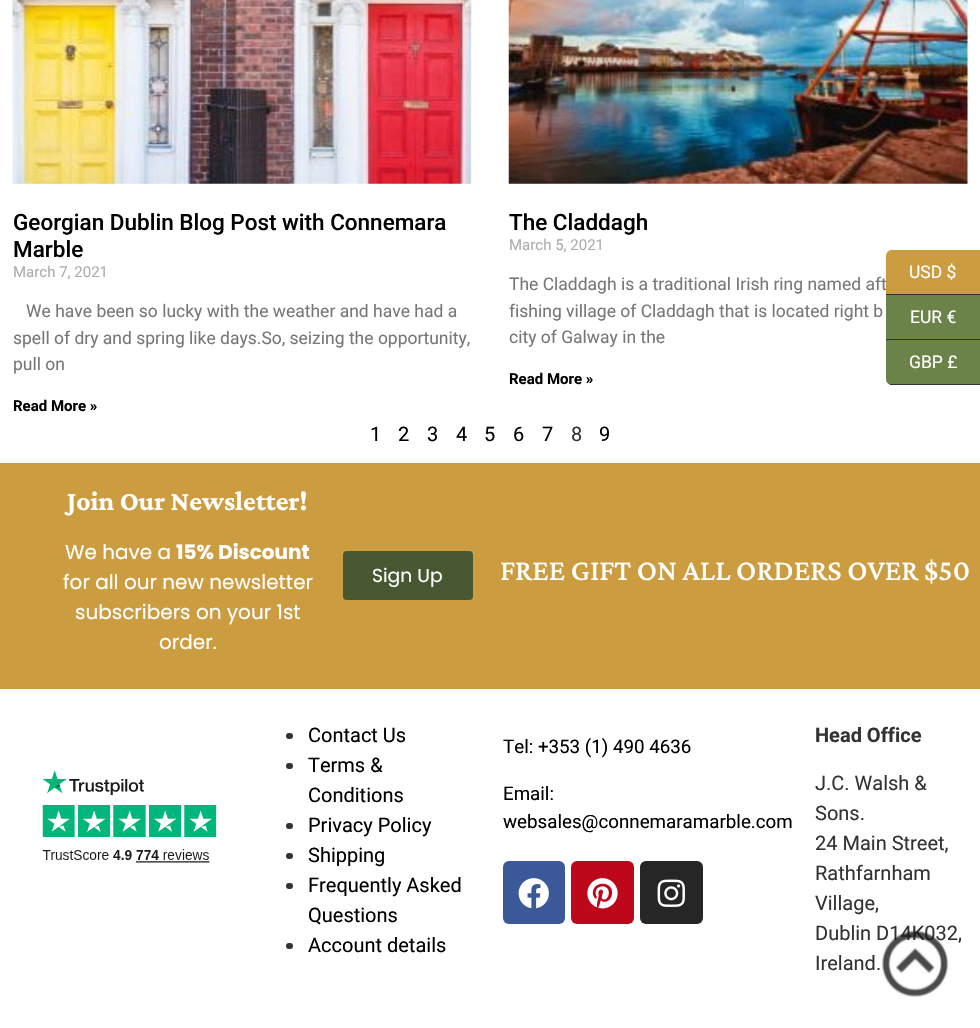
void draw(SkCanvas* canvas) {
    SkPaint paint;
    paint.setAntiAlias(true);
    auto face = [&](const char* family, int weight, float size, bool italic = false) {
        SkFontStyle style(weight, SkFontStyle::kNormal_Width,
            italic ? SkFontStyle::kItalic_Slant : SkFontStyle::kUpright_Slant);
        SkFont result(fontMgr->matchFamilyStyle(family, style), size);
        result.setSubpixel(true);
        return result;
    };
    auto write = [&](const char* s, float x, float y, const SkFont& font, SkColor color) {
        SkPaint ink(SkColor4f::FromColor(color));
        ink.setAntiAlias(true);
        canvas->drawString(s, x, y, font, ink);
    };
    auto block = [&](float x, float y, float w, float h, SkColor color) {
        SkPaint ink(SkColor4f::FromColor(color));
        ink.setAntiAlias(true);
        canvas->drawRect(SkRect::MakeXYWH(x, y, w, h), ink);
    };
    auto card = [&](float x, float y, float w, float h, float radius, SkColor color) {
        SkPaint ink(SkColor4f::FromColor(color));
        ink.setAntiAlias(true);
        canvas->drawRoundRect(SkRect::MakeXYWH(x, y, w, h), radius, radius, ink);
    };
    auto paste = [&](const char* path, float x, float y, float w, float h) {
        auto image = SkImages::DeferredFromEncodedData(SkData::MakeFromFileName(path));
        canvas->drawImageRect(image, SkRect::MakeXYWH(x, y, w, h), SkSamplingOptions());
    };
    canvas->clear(SK_ColorWHITE);
    paste("pic1.png", 12, 0, 460, 184);
    auto kFont1 = face("Roboto", 500, 22.5f);
    write("Georgian Dublin Blog Post with Connemara", 13, 230, kFont1, SK_ColorBLACK);
    write("Marble", 13, 257, kFont1, SK_ColorBLACK);
    auto kFont2 = face("Roboto", 400, 15);
    write("March 7, 2021", 13, 277, kFont2, SkColorSetRGB(173, 173, 173));
    auto kFont3 = face("Roboto", 400, 17.5f);
    write("We have been so lucky with the weather and have had a", 26, 317, kFont3, SkColorSetRGB(119, 119, 119));
    write("spell of dry and spring like days.So, seizing the opportunity,", 13, 344, kFont3, SkColorSetRGB(119, 119, 119));
    write("pull on", 13, 370, kFont3, SkColorSetRGB(119, 119, 119));
    auto kFont4 = face("Roboto", 700, 15);
    write("Read More »", 13, 411, kFont4, SK_ColorBLACK);
    paste("pic2.png", 508, 0, 460, 184);
    write("The Claddagh", 509, 230, kFont1, SK_ColorBLACK);
    write("March 5, 2021", 509, 250, kFont2, SkColorSetRGB(173, 173, 173));
    write("The Claddagh is a traditional Irish ring named aft", 509, 290, kFont3, SkColorSetRGB(119, 119, 119));
    write("fishing village of Claddagh that is located right b", 509, 317, kFont3, SkColorSetRGB(119, 119, 119));
    write("city of Galway in the", 509, 343, kFont3, SkColorSetRGB(119, 119, 119));
    write("Read More »", 509, 384, kFont4, SK_ColorBLACK);
    auto kFont5 = face("Roboto", 400, 20);
    write("1", 370, 441, kFont5, SK_ColorBLACK);
    write("2", 398, 441, kFont5, SK_ColorBLACK);
    write("3", 427, 441, kFont5, SK_ColorBLACK);
    write("4", 456, 441, kFont5, SK_ColorBLACK);
    write("5", 484, 441, kFont5, SK_ColorBLACK);
    write("6", 513, 441, kFont5, SK_ColorBLACK);
    write("7", 542, 441, kFont5, SK_ColorBLACK);
    write("8", 571, 441, kFont5, SkColorSetRGB(51, 51, 51));
    write("9", 599, 441, kFont5, SK_ColorBLACK);
    paint.setColor(SkColorSetRGB(204, 156, 64));
    canvas->drawPath(SkPathBuilder().moveTo(892, 250).lineTo(980, 250).lineTo(980, 295).lineTo(886, 295).lineTo(886, 256).cubicTo(886, 252.5f, 888.5f, 250, 892, 250).close().detach(), paint);
    block(886, 294, 94, 1, SkColorSetRGB(51, 51, 51));
    write("USD $", 909, 278, kFont3, SK_ColorWHITE);
    block(886, 295, 94, 44, SkColorSetRGB(107, 130, 73));
    block(886, 339, 94, 1, SkColorSetRGB(51, 51, 51));
    write("EUR €", 910, 323, kFont3, SK_ColorWHITE);
    paint.setColor(SkColorSetRGB(107, 130, 73));
    canvas->drawPath(SkPathBuilder().moveTo(886, 340).lineTo(980, 340).lineTo(980, 385).lineTo(892, 385).cubicTo(888.5f, 385, 886, 382.5f, 886, 379).close().detach(), paint);
    block(890, 384, 90, 1, SkColorSetRGB(51, 51, 51));
    write("GBP £", 909, 368, kFont3, SK_ColorWHITE);
    block(0, 463, 980, 226, SkColorSetRGB(204, 156, 64));
    auto kFont6 = face("Crimson Pro", 700, 27.5f);
    write("Join Our Newsletter!", 67, 510, kFont6, SK_ColorWHITE);
    auto kFont7 = face("Poppins", 400, 20);
    write("We have a", 65, 559, kFont7, SK_ColorWHITE);
    auto kFont8 = face("Poppins", 700, 20);
    write("15% Discount", 176, 559, kFont8, SK_ColorWHITE);
    write("for all our new newsletter", 63, 589, kFont7, SK_ColorWHITE);
    write("subscribers on your 1st", 75, 619, kFont7, SK_ColorWHITE);
    write("order.", 159, 649, kFont7, SK_ColorWHITE);
    card(343, 551, 130, 49, 4, SkColorSetRGB(71, 87, 50));
    auto kFont9 = face("Poppins", 400, 18.75f);
    write("Sign Up", 372, 582, kFont9, SK_ColorWHITE);
    auto kFont10 = face("Crimson Pro", 500, 30);
    write("FREE GIFT ON ALL ORDERS OVER $50", 500, 580, kFont10, SK_ColorWHITE);
    paste("pic3.png", 42, 770, 175, 93);
    card(286, 733, 7, 6, 3, SkColorSetRGB(51, 51, 51));
    write("Contact Us", 308, 742, kFont5, SK_ColorBLACK);
    card(286, 763, 7, 6, 3, SkColorSetRGB(51, 51, 51));
    write("Terms &", 308, 772, kFont5, SK_ColorBLACK);
    write("Conditions", 308, 802, kFont5, SK_ColorBLACK);
    card(286, 823, 7, 6, 3, SkColorSetRGB(51, 51, 51));
    write("Privacy Policy", 308, 832, kFont5, SK_ColorBLACK);
    card(286, 853, 7, 6, 3, SkColorSetRGB(51, 51, 51));
    write("Shipping", 308, 862, kFont5, SK_ColorBLACK);
    card(286, 883, 7, 6, 3, SkColorSetRGB(51, 51, 51));
    write("Frequently Asked", 308, 892, kFont5, SK_ColorBLACK);
    write("Questions", 308, 922, kFont5, SK_ColorBLACK);
    card(286, 943, 7, 6, 3, SkColorSetRGB(51, 51, 51));
    write("Account details", 308, 952, kFont5, SK_ColorBLACK);
    auto kFont11 = face("Roboto", 400, 18.75f);
    write("Tel: +353 (1) 490 4636", 503, 753, kFont11, SK_ColorBLACK);
    write("Email:", 503, 800, kFont11, SK_ColorBLACK);
    write("websales@connemaramarble.com", 503, 828, kFont11, SK_ColorBLACK);
    card(503, 861, 62, 63, 6, SkColorSetRGB(59, 89, 152));
    paste("pic4.png", 518, 878, 31, 31);
    card(571, 861, 63, 63, 6, SkColorSetRGB(189, 8, 28));
    paste("pic5.png", 587, 878, 31, 31);
    card(640, 861, 63, 63, 6, SkColorSetRGB(38, 38, 38));
    paste("pic6.png", 657, 879, 28, 28);
    auto kFont12 = face("Roboto", 700, 20);
    write("Head Office", 815, 742, kFont12, SkColorSetRGB(51, 51, 51));
    write("J.C. Walsh &", 815, 790, kFont5, SkColorSetRGB(51, 51, 51));
    write("Sons.", 815, 820, kFont5, SkColorSetRGB(51, 51, 51));
    write("24 Main Street,", 815, 850, kFont5, SkColorSetRGB(51, 51, 51));
    write("Rathfarnham", 815, 880, kFont5, SkColorSetRGB(51, 51, 51));
    write("Village,", 815, 910, kFont5, SkColorSetRGB(51, 51, 51));
    write("Dublin D14K032,", 815, 940, kFont5, SkColorSetRGB(51, 51, 51));
    write("Ireland.", 815, 970, kFont5, SkColorSetRGB(51, 51, 51));
    paste("pic7.png", 882, 930, 67, 67);
}
